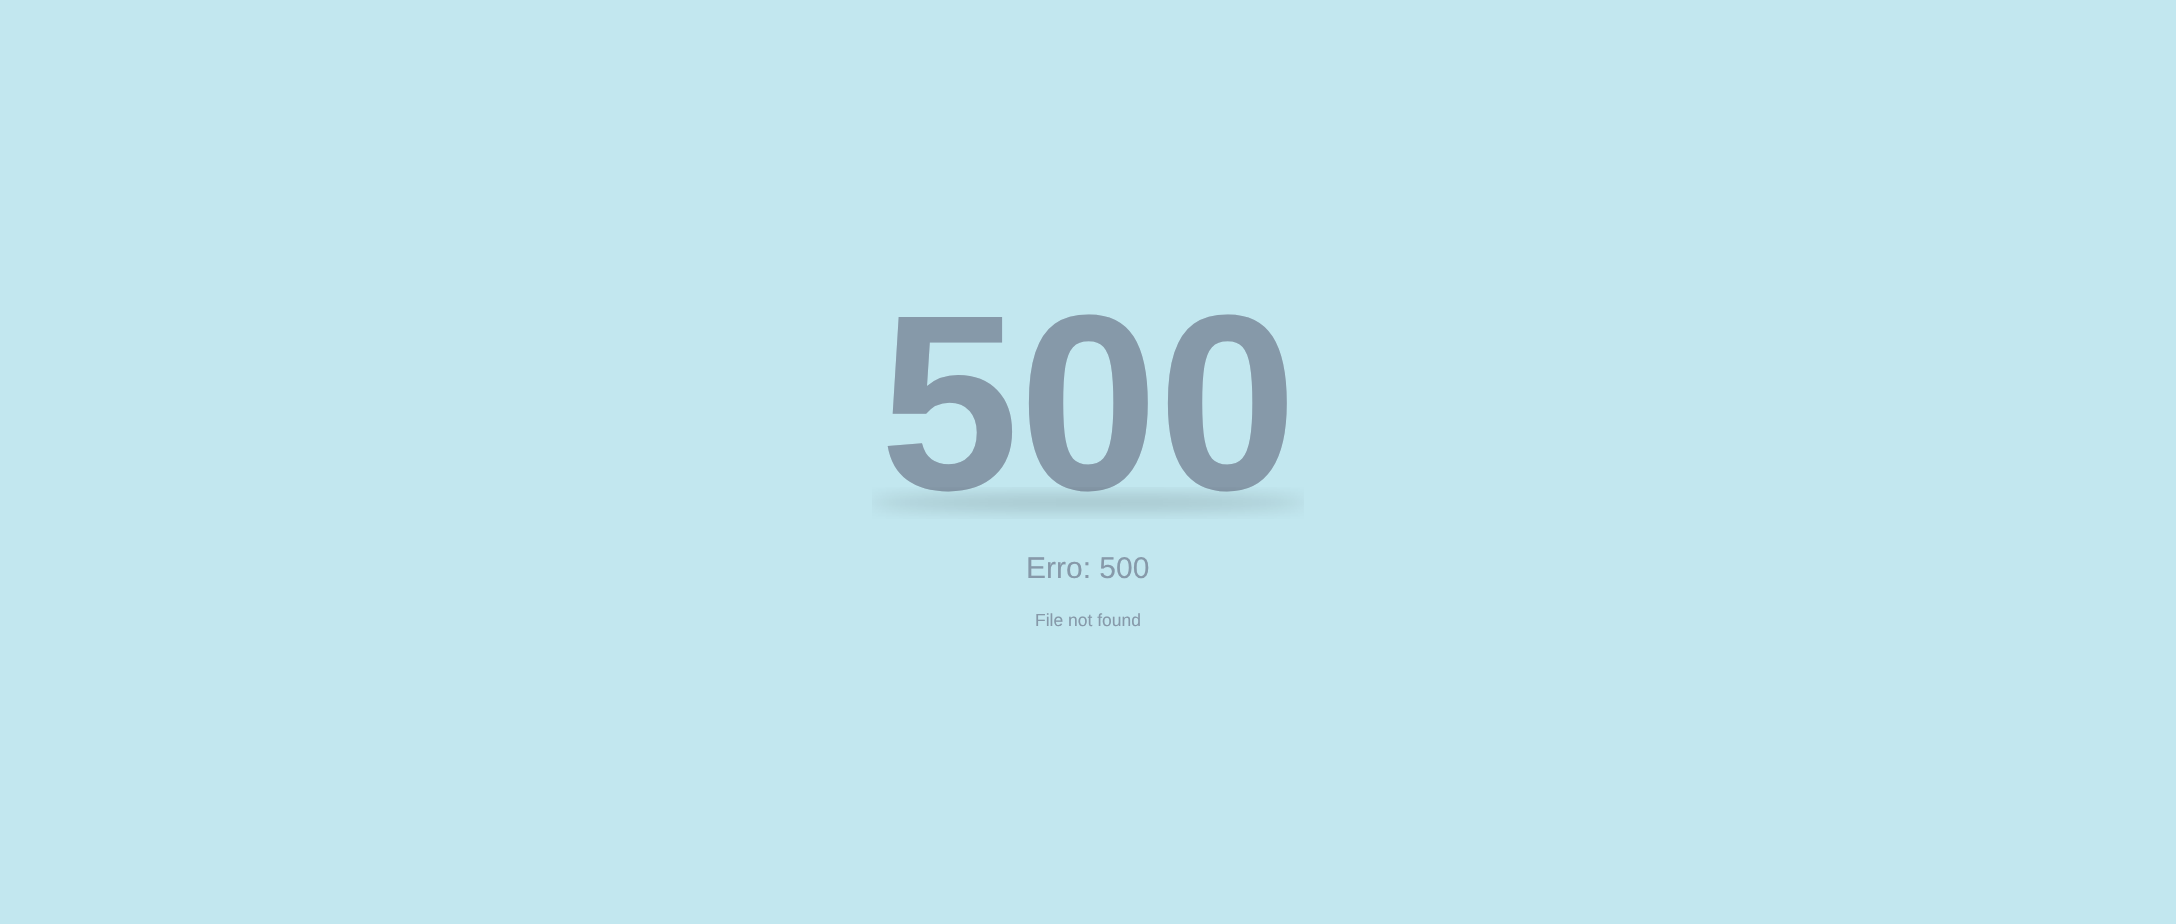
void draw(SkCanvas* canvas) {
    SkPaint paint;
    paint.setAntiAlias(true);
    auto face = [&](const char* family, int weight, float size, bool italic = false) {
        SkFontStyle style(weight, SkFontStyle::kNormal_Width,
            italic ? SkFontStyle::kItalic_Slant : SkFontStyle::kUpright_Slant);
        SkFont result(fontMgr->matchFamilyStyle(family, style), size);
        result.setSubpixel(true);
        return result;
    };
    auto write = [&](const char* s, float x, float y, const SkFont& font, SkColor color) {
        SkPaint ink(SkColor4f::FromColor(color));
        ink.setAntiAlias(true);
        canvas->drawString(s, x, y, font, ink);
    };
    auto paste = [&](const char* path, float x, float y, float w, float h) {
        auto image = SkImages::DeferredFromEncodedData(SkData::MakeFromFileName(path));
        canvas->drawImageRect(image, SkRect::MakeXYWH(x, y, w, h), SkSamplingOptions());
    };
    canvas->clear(SkColorSetRGB(194, 231, 239));
    auto kFont1 = face("Liberation Sans", 700, 250);
    write("500", 880, 489, kFont1, SkColorSetRGB(134, 153, 169));
    paste("pic1.png", 872, 487, 432, 32);
    auto kFont2 = face("Liberation Sans", 400, 30);
    write("Erro: 500", 1026, 578, kFont2, SkColorSetRGB(134, 153, 169));
    auto kFont3 = face("Liberation Sans", 400, 17.5f);
    write("File not found", 1035, 626, kFont3, SkColorSetRGB(134, 153, 169));
}
